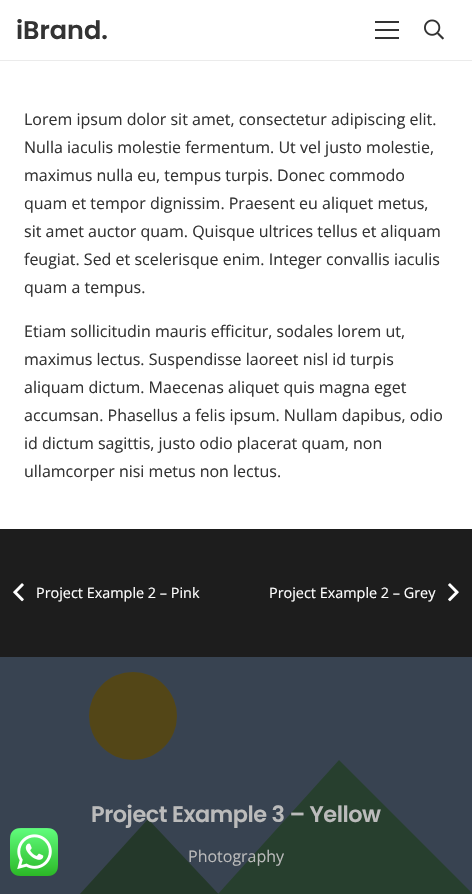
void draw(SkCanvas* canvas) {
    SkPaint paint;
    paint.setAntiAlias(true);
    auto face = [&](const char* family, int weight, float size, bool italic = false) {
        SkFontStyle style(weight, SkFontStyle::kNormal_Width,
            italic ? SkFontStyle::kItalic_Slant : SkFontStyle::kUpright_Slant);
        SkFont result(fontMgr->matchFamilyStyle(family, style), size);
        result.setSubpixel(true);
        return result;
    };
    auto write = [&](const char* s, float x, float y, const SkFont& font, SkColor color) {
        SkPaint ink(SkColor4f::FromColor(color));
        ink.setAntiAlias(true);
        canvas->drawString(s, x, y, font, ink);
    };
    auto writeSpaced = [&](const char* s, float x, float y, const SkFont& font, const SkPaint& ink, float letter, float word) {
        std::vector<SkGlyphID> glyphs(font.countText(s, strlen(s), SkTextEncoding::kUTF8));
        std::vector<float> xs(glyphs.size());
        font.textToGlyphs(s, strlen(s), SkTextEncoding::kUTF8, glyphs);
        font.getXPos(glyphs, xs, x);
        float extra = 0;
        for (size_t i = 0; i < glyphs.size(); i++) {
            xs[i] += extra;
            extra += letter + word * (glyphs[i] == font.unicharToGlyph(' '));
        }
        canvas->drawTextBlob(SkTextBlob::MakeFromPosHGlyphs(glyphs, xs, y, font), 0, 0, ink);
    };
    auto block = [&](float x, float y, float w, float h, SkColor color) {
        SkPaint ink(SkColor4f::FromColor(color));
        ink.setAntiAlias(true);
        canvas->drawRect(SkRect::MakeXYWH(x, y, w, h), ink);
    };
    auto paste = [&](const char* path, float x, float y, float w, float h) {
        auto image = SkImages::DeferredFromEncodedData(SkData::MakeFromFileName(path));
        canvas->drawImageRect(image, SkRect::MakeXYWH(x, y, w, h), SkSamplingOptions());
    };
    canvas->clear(SK_ColorWHITE);
    block(0, 60, 472, 1, SkColorSetRGB(235, 235, 235));
    auto kFont1 = face("Poppins", 600, 25.5f);
    write("iBrand.", 16, 39, kFont1, SkColorSetRGB(51, 51, 51));
    block(375, 29, 24, 2, SkColorSetRGB(51, 51, 51));
    block(375, 21, 24, 2, SkColorSetRGB(51, 51, 51));
    block(375, 37, 24, 2, SkColorSetRGB(51, 51, 51));
    paste("pic1.png", 424, 19, 20, 21);
    auto kFont2 = face("Open Sans", 400, 16);
    write("Lorem ipsum dolor sit amet, consectetur adipiscing elit.", 24, 125, kFont2, SkColorSetRGB(51, 51, 51));
    write("Nulla iaculis molestie fermentum. Ut vel justo molestie,", 24, 153, kFont2, SkColorSetRGB(51, 51, 51));
    write("maximus nulla eu, tempus turpis. Donec commodo", 24, 181, kFont2, SkColorSetRGB(51, 51, 51));
    write("quam et tempor dignissim. Praesent eu aliquet metus,", 24, 209, kFont2, SkColorSetRGB(51, 51, 51));
    write("sit amet auctor quam. Quisque ultrices tellus et aliquam", 24, 237, kFont2, SkColorSetRGB(51, 51, 51));
    write("feugiat. Sed et scelerisque enim. Integer convallis iaculis", 24, 265, kFont2, SkColorSetRGB(51, 51, 51));
    write("quam a tempus.", 24, 293, kFont2, SkColorSetRGB(51, 51, 51));
    write("Etiam sollicitudin mauris efficitur, sodales lorem ut,", 24, 337, kFont2, SkColorSetRGB(51, 51, 51));
    write("maximus lectus. Suspendisse laoreet nisl id turpis", 24, 365, kFont2, SkColorSetRGB(51, 51, 51));
    write("aliquam dictum. Maecenas aliquet quis magna eget", 24, 393, kFont2, SkColorSetRGB(51, 51, 51));
    write("accumsan. Phasellus a felis ipsum. Nullam dapibus, odio", 24, 421, kFont2, SkColorSetRGB(51, 51, 51));
    write("id dictum sagittis, justo odio placerat quam, non", 24, 449, kFont2, SkColorSetRGB(51, 51, 51));
    write("ullamcorper nisi metus non lectus.", 24, 477, kFont2, SkColorSetRGB(51, 51, 51));
    block(0, 529, 472, 128, SkColorSetRGB(29, 29, 29));
    paste("pic2.png", 13, 583, 11, 19);
    auto kFont3 = face("Open Sans", 400, 14.4f);
    write("Project Example 2 – Pink", 36, 598, kFont3, SK_ColorWHITE);
    write("Project Example 2 – Grey", 269, 598, kFont3, SK_ColorWHITE);
    paste("pic3.png", 448, 583, 11, 19);
    block(0, 657, 472, 237, SkColorSetRGB(56, 67, 81));
    paint.setColor(SkColorSetRGB(83, 70, 23));
    canvas->drawCircle(133, 716, 44, paint);
    paint.setColor(SkColorSetRGB(36, 56, 42));
    canvas->drawPath(SkPathBuilder().moveTo(384, 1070).lineTo(0, 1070).lineTo(0, 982).lineTo(148, 819).close().detach(), paint);
    paint.setColor(SkColorSetRGB(39, 63, 46));
    canvas->drawPath(SkPathBuilder().moveTo(472, 893).lineTo(472, 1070).lineTo(59, 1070).lineTo(339, 760).close().detach(), paint);
    auto kFont4 = face("Poppins", 600, 22.4f);
    paint.setColor(SkColorSetRGB(187, 187, 187));
    writeSpaced("Project Example 3 – Yellow", 91, 822, kFont4, paint, -0.45f, 0);
    write("Photography", 188, 862, kFont2, SkColorSetRGB(187, 187, 187));
    paste("pic4.png", 10, 828, 48, 48);
}
